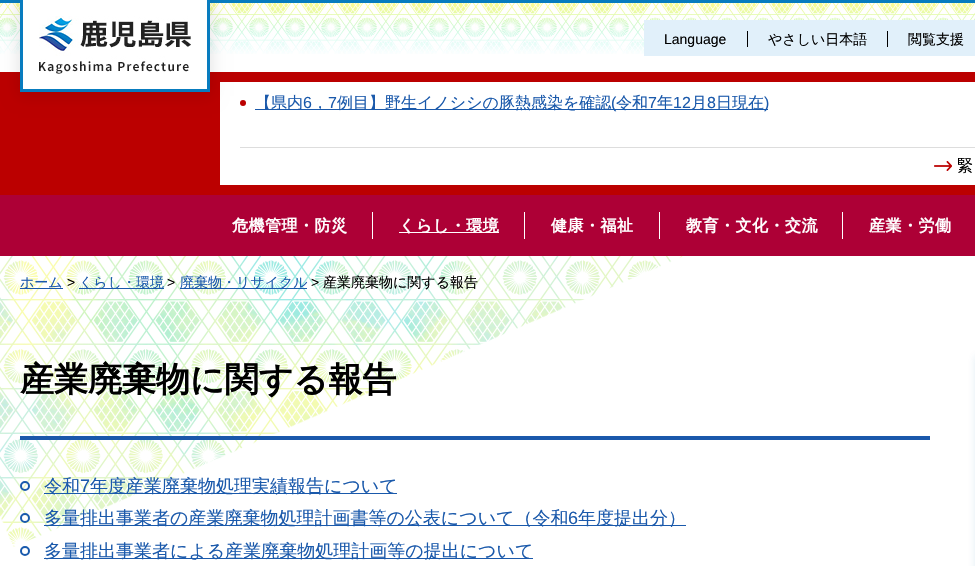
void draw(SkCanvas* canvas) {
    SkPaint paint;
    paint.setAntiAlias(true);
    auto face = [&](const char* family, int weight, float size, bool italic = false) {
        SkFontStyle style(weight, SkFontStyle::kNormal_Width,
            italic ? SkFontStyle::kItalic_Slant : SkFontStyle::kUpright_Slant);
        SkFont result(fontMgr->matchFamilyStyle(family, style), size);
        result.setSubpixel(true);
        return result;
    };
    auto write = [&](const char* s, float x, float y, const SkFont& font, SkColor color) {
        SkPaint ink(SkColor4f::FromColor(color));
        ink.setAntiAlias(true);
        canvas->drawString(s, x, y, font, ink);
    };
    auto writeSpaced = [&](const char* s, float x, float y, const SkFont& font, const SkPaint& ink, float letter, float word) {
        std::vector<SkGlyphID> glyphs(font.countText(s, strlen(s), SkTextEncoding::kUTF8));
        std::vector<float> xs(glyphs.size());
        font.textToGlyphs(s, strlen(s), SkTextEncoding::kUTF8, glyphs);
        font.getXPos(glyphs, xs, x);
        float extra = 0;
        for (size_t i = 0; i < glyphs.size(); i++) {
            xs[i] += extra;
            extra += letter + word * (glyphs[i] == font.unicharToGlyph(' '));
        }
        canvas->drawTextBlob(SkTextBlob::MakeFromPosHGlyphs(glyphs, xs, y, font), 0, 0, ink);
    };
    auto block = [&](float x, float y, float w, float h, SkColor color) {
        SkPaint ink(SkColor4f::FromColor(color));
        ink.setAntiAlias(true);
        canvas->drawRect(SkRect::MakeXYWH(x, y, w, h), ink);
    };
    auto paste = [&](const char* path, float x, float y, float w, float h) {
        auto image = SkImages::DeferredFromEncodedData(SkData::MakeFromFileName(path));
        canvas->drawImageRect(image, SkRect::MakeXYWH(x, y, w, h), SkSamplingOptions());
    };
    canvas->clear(SK_ColorWHITE);
    paste("pic1.png", 0, 3, 975, 51);
    block(0, 0, 975, 3, SkColorSetRGB(8, 124, 191));
    block(0, 72, 975, 123, SkColorSetRGB(187, 0, 0));
    block(220, 82, 755, 103, SK_ColorWHITE);
    paint.setColor(SkColorSetARGB(26, 0, 0, 0));
    paint.setMaskFilter(SkMaskFilter::MakeBlur(kNormal_SkBlurStyle, 7.5f));
    canvas->drawRect(SkRect::MakeXYWH(18, 0, 194, 96), paint);
    paint.setMaskFilter(nullptr);
    block(23, 0, 184, 89, SK_ColorWHITE);
    block(207, 0, 3, 92, SkColorSetRGB(8, 124, 191));
    block(20, 89, 190, 3, SkColorSetRGB(8, 124, 191));
    block(20, 0, 3, 92, SkColorSetRGB(8, 124, 191));
    paste("pic2.png", 39, 16, 152, 58);
    block(644, 20, 331, 36, SkColorSetRGB(225, 240, 250));
    block(747, 31, 1, 16, SK_ColorBLACK);
    auto kFont1 = face("Liberation Sans", 400, 14);
    write("Language", 664, 44, kFont1, SK_ColorBLACK);
    block(887, 31, 1, 16, SK_ColorBLACK);
    auto kFont2 = face("WenQuanYi Zen Hei", 500, 14);
    write("やさしい日本語", 768, 44, kFont2, SK_ColorBLACK);
    write("閲覧支援", 908, 44, kFont2, SK_ColorBLACK);
    paint.setColor(SkColorSetRGB(187, 0, 0));
    canvas->drawCircle(243, 103, 3, paint);
    block(255, 109, 513, 1, SkColorSetRGB(26, 89, 171));
    auto kFont3 = face("WenQuanYi Zen Hei", 500, 16);
    write("【県内", 255, 108, kFont3, SkColorSetRGB(26, 89, 171));
    auto kFont4 = face("Liberation Sans", 400, 16);
    write("6", 303, 108, kFont4, SkColorSetRGB(26, 89, 171));
    write("7", 328, 108, kFont4, SkColorSetRGB(26, 89, 171));
    write("例目】野生イノシシの豚熱感染を確認", 337, 108, kFont3, SkColorSetRGB(26, 89, 171));
    write("(", 611, 108, kFont4, SkColorSetRGB(26, 89, 171));
    write("令和", 616, 108, kFont3, SkColorSetRGB(26, 89, 171));
    write("7", 648, 108, kFont4, SkColorSetRGB(26, 89, 171));
    write("年", 657, 108, kFont3, SkColorSetRGB(26, 89, 171));
    write("12", 673, 108, kFont4, SkColorSetRGB(26, 89, 171));
    write("月", 691, 108, kFont3, SkColorSetRGB(26, 89, 171));
    write("8", 707, 108, kFont4, SkColorSetRGB(26, 89, 171));
    write("日現在", 716, 108, kFont3, SkColorSetRGB(26, 89, 171));
    write(")", 764, 108, kFont4, SkColorSetRGB(26, 89, 171));
    write("，", 312, 108, kFont3, SkColorSetRGB(26, 89, 171));
    block(240, 147, 735, 1, SkColorSetRGB(221, 221, 221));
    paste("pic3.png", 934, 161, 18, 10);
    write("緊", 957, 171, kFont3, SK_ColorBLACK);
    block(0, 195, 975, 61, SkColorSetRGB(173, 0, 54));
    auto kFont5 = face("WenQuanYi Zen Hei", 700, 16);
    paint.setColor(SK_ColorWHITE);
    writeSpaced("危機管理・防災", 232, 231, kFont5, paint, 0.5f, 0);
    block(372, 212, 1, 27, SK_ColorWHITE);
    block(399, 232, 100, 1, SK_ColorWHITE);
    writeSpaced("くらし・環境", 399, 231, kFont5, paint, 0.5f, 0);
    block(524, 212, 1, 27, SK_ColorWHITE);
    writeSpaced("健康・福祉", 551, 231, kFont5, paint, 0.5f, 0);
    block(659, 212, 1, 27, SK_ColorWHITE);
    writeSpaced("教育・文化・交流", 686, 231, kFont5, paint, 0.5f, 0);
    block(842, 212, 1, 27, SK_ColorWHITE);
    writeSpaced("産業・労働", 869, 231, kFont5, paint, 0.5f, 0);
    paste("pic4.png", 0, 256, 683, 291);
    block(20, 288, 43, 1, SkColorSetRGB(26, 89, 171));
    write("ホーム", 20, 287, kFont2, SkColorSetRGB(26, 89, 171));
    write(">", 67, 287, kFont1, SK_ColorBLACK);
    block(79, 288, 85, 1, SkColorSetRGB(26, 89, 171));
    write("くらし・環境", 79, 287, kFont2, SkColorSetRGB(26, 89, 171));
    write(">", 167, 287, kFont1, SK_ColorBLACK);
    block(180, 288, 127, 1, SkColorSetRGB(26, 89, 171));
    write("廃棄物・リサイクル", 180, 287, kFont2, SkColorSetRGB(26, 89, 171));
    write(">", 311, 287, kFont1, SK_ColorBLACK);
    write("産業廃棄物に関する報告", 323, 287, kFont2, SK_ColorBLACK);
    block(20, 436, 910, 4, SkColorSetRGB(26, 88, 171));
    auto kFont6 = face("WenQuanYi Zen Hei", 700, 34);
    write("産業廃棄物に関する報告", 20, 391, kFont6, SK_ColorBLACK);
    paint.setStyle(SkPaint::kStroke_Style);
    paint.setStrokeWidth(2);
    paint.setColor(SkColorSetRGB(25, 90, 172));
    canvas->drawCircle(25, 486, 4, paint);
    block(44, 493, 353, 1, SkColorSetRGB(26, 89, 171));
    auto kFont7 = face("WenQuanYi Zen Hei", 500, 18);
    write("令和", 44, 492, kFont7, SkColorSetRGB(26, 89, 171));
    auto kFont8 = face("Liberation Sans", 400, 18);
    write("7", 80, 492, kFont8, SkColorSetRGB(26, 89, 171));
    write("年度産業廃棄物処理実績報告について", 90, 492, kFont7, SkColorSetRGB(26, 89, 171));
    canvas->drawCircle(25, 518, 4, paint);
    block(44, 525, 642, 1, SkColorSetRGB(26, 89, 171));
    write("多量排出事業者の産業廃棄物処理計画書等の公表について（令和", 44, 524, kFont7, SkColorSetRGB(26, 89, 171));
    write("6", 568, 524, kFont8, SkColorSetRGB(26, 89, 171));
    write("年度提出分）", 578, 524, kFont7, SkColorSetRGB(26, 89, 171));
    canvas->drawCircle(25, 551, 4, paint);
    block(44, 558, 489, 1, SkColorSetRGB(26, 89, 171));
    write("多量排出事業者による産業廃棄物処理計画等の提出について", 44, 557, kFont7, SkColorSetRGB(26, 89, 171));
    paint.setStyle(SkPaint::kFill_Style);
    paint.setColor(SkColorSetARGB(38, 7, 105, 162));
    paint.setMaskFilter(SkMaskFilter::MakeBlur(kNormal_SkBlurStyle, 4));
    canvas->drawRect(SkRect::MakeXYWH(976, 356, 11, 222), paint);
    paint.setMaskFilter(nullptr);
}
